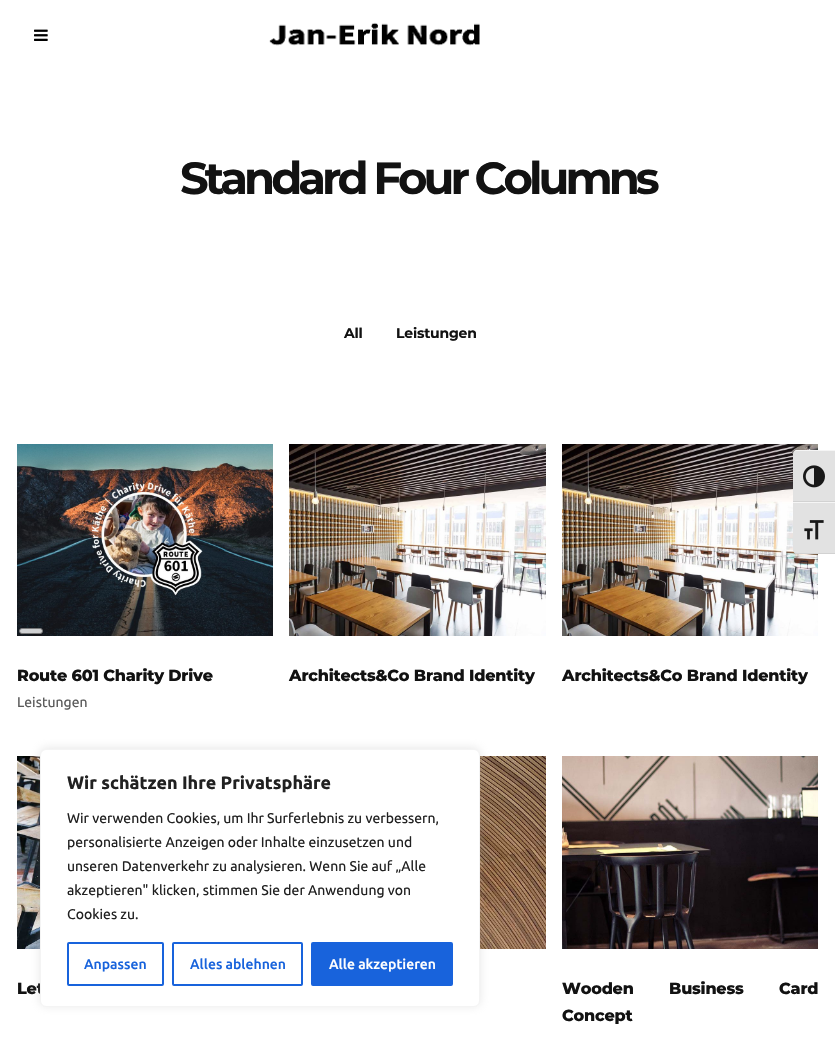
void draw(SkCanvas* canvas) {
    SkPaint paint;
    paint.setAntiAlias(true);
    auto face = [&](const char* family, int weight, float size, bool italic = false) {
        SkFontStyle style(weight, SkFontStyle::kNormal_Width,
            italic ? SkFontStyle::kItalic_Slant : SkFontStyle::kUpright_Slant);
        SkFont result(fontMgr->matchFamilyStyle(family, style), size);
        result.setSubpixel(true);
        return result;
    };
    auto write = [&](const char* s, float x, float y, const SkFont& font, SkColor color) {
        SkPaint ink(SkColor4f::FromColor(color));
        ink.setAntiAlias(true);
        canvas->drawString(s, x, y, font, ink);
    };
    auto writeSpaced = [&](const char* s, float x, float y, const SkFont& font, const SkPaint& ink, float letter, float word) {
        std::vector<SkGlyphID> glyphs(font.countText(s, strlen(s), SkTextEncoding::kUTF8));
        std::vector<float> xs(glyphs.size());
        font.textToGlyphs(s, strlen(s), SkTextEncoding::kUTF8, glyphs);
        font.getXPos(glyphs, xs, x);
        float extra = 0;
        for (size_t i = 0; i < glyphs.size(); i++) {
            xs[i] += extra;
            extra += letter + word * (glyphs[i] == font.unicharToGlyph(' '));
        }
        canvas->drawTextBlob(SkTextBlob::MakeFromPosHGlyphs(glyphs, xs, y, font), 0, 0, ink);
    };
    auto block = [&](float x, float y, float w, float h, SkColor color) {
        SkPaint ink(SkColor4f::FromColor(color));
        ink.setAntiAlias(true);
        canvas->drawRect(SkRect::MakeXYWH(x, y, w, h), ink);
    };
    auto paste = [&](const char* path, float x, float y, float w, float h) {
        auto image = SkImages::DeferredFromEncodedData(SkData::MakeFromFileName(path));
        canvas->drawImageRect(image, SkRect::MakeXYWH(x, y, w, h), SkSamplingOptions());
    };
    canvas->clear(SK_ColorWHITE);
    paste("pic1.png", 34, 29, 14, 12);
    paste("pic2.png", 269, 22, 211, 24);
    auto kFont1 = face("Montserrat", 100, 45);
    paint.setColor(SkColorSetRGB(18, 18, 18));
    writeSpaced("Standard Four Columns", 180, 194, kFont1, paint, -4, 0);
    auto kFont2 = face("Montserrat", 100, 14);
    writeSpaced("All", 344, 338, kFont2, paint, -0.2f, 0);
    writeSpaced("Leistungen", 396, 338, kFont2, paint, -0.2f, 0);
    paste("pic3.png", 17, 444, 256, 192);
    paint.setColor(SkColorSetARGB(204, 255, 255, 255));
    canvas->drawRoundRect(SkRect::MakeXYWH(19.5f, 628.5f, 23, 5), 2.5f, 2.5f, paint);
    paint.setStyle(SkPaint::kStroke_Style);
    paint.setStrokeWidth(1);
    paint.setColor(SkColorSetRGB(119, 119, 119));
    canvas->drawRoundRect(SkRect::MakeXYWH(19.5f, 628.5f, 23, 5), 2.5f, 2.5f, paint);
    auto kFont3 = face("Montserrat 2", 100, 16);
    paint.setStyle(SkPaint::kFill_Style);
    paint.setColor(SkColorSetRGB(18, 18, 18));
    writeSpaced("Route 601 Charity Drive", 17, 681, kFont3, paint, -0.2f, 0);
    auto kFont4 = face("Ubuntu", 400, 14);
    write("Leistungen", 17, 707, kFont4, SkColorSetRGB(90, 90, 90));
    paste("pic4.png", 289, 444, 257, 192);
    writeSpaced("Architects&Co Brand Identity", 289, 681, kFont3, paint, -0.2f, 0);
    paste("pic5.png", 562, 444, 256, 192);
    writeSpaced("Architects&Co Brand Identity", 562, 681, kFont3, paint, -0.2f, 0);
    paste("pic6.png", 480, 756, 66, 193);
    paste("pic7.png", 17, 756, 23, 193);
    writeSpaced("Let", 17, 994, kFont3, paint, -0.2f, 0);
    paste("pic8.png", 562, 756, 256, 193);
    writeSpaced("Wooden Business Card", 562, 994, kFont3, paint, -0.2f, 31);
    writeSpaced("Concept", 562, 1021, kFont3, paint, -0.2f, 0);
    paint.setColor(SkColorSetRGB(226, 226, 226));
    canvas->drawPath(SkPathBuilder().moveTo(797, 450).lineTo(835, 450).lineTo(835, 502).lineTo(793, 502).lineTo(793, 454).cubicTo(793, 452, 795, 450, 797, 450).close().detach(), paint);
    paint.setColor(SkColorSetRGB(245, 245, 245));
    canvas->drawPath(SkPathBuilder().moveTo(797, 451).lineTo(835, 451).lineTo(835, 450).lineTo(797, 450).cubicTo(795, 450, 793, 452, 793, 454).cubicTo(793, 452, 795, 451, 797, 451).close().detach(), paint);
    block(793, 501, 42, 1, SkColorSetRGB(210, 210, 210));
    paste("pic9.png", 803, 465, 22, 23);
    paint.setColor(SkColorSetRGB(226, 226, 226));
    canvas->drawPath(SkPathBuilder().moveTo(793, 502).lineTo(835, 502).lineTo(835, 554).lineTo(797, 554).cubicTo(795, 554, 793, 552, 793, 550).close().detach(), paint);
    block(793, 502, 42, 1, SkColorSetRGB(245, 245, 245));
    paint.setColor(SkColorSetRGB(210, 210, 210));
    canvas->drawPath(SkPathBuilder().moveTo(835, 554).lineTo(835, 553).lineTo(797, 553).cubicTo(795, 553, 793, 552, 793, 550).cubicTo(793, 552, 795, 554, 797, 554).close().detach(), paint);
    paste("pic10.png", 804, 520, 20, 20);
    paint.setColor(SkColorSetARGB(77, 172, 171, 171));
    paint.setMaskFilter(SkMaskFilter::MakeBlur(kNormal_SkBlurStyle, 5));
    canvas->drawRoundRect(SkRect::MakeXYWH(40, 748, 440, 258), 6, 6, paint);
    paint.setMaskFilter(nullptr);
    paint.setColor(SK_ColorWHITE);
    canvas->drawRoundRect(SkRect::MakeXYWH(40.5f, 749.5f, 439, 257), 5.5f, 5.5f, paint);
    paint.setStyle(SkPaint::kStroke_Style);
    paint.setColor(SkColorSetRGB(244, 244, 244));
    canvas->drawRoundRect(SkRect::MakeXYWH(40.5f, 749.5f, 439, 257), 5.5f, 5.5f, paint);
    auto kFont5 = face("Ubuntu", 700, 18);
    write("Wir schätzen Ihre Privatsphäre", 67, 789, kFont5, SkColorSetRGB(33, 33, 33));
    write("Wir verwenden Cookies, um Ihr Surferlebnis zu verbessern,", 67, 823, kFont4, SkColorSetRGB(33, 33, 33));
    write("personalisierte Anzeigen oder Inhalte einzusetzen und", 67, 847, kFont4, SkColorSetRGB(33, 33, 33));
    write("unseren Datenverkehr zu analysieren. Wenn Sie auf „Alle", 67, 871, kFont4, SkColorSetRGB(33, 33, 33));
    write("akzeptieren\" klicken, stimmen Sie der Anwendung von", 67, 895, kFont4, SkColorSetRGB(33, 33, 33));
    write("Cookies zu.", 67, 919, kFont4, SkColorSetRGB(33, 33, 33));
    paint.setStrokeWidth(2);
    paint.setColor(SkColorSetRGB(24, 99, 220));
    canvas->drawRoundRect(SkRect::MakeXYWH(68, 943, 95, 42), 1, 1, paint);
    auto kFont6 = face("Ubuntu", 500, 14);
    write("Anpassen", 84, 969, kFont6, SkColorSetRGB(24, 99, 220));
    canvas->drawRoundRect(SkRect::MakeXYWH(173, 943, 129, 42), 1, 1, paint);
    write("Alles ablehnen", 190, 969, kFont6, SkColorSetRGB(24, 99, 220));
    paint.setStyle(SkPaint::kFill_Style);
    canvas->drawRoundRect(SkRect::MakeXYWH(312, 943, 140, 42), 1, 1, paint);
    paint.setStyle(SkPaint::kStroke_Style);
    canvas->drawRoundRect(SkRect::MakeXYWH(312, 943, 140, 42), 1, 1, paint);
    write("Alle akzeptieren", 329, 969, kFont6, SK_ColorWHITE);
}
